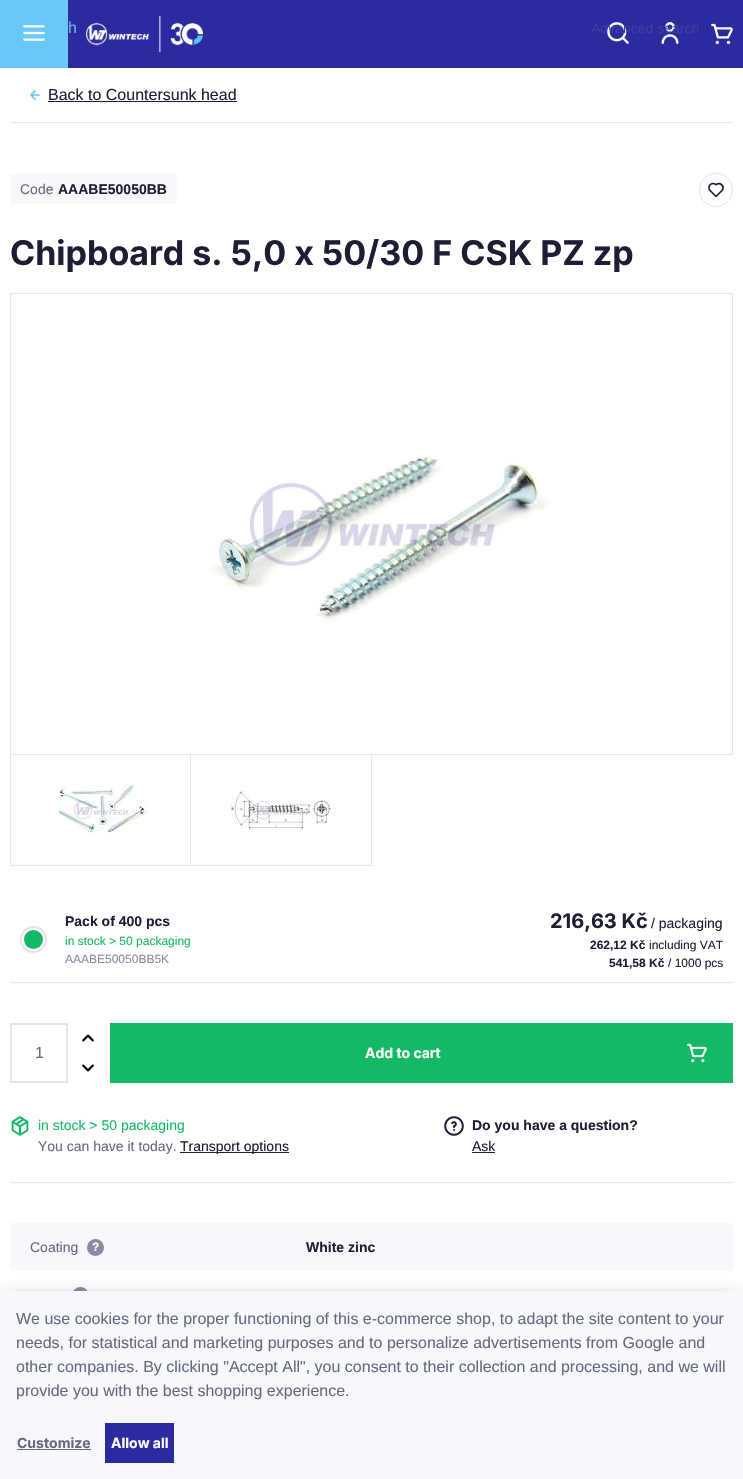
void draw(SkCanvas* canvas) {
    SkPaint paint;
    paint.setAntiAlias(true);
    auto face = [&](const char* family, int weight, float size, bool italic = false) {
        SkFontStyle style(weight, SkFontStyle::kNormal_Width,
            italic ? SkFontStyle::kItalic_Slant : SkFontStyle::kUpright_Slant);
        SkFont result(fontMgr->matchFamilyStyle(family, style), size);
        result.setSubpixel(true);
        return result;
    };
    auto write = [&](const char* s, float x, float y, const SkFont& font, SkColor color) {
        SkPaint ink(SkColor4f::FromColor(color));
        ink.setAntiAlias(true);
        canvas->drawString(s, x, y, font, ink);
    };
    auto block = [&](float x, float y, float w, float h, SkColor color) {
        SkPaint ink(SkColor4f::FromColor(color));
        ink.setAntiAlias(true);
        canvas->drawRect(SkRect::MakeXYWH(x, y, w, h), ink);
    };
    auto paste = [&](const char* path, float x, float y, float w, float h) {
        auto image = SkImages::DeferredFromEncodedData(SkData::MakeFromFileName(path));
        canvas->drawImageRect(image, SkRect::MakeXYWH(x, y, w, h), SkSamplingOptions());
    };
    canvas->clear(SK_ColorWHITE);
    block(68, 0, 675, 68, SkColorSetRGB(43, 43, 159));
    block(0, 0, 68, 68, SkColorSetRGB(105, 200, 248));
    paste("pic1.png", 23, 25, 22, 16);
    paste("pic2.png", 86, 16, 117, 36);
    paste("pic3.png", 607, 22, 22, 22);
    paste("pic4.png", 661, 22, 18, 22);
    paste("pic5.png", 711, 23, 22, 22);
    auto kFont1 = face("Liberation Sans", 400, 16);
    write("h", 68, 33, kFont1, SkColorSetRGB(115, 179, 232));
    auto kFont2 = face("Liberation Sans", 400, 14);
    write("Advanced search", 591, 33, kFont2, SkColorSetRGB(60, 60, 167));
    block(10, 122, 723, 1, SkColorSetRGB(226, 228, 239));
    paste("pic6.png", 30, 90, 10, 10);
    write("Back to Countersunk head", 48, 100, kFont1, SkColorSetRGB(28, 31, 52));
    block(48, 101, 189, 1, SkColorSetRGB(28, 31, 52));
    block(10, 174, 167, 30, SkColorSetRGB(247, 248, 252));
    write("Code", 20, 194, kFont2, SkColorSetRGB(102, 105, 126));
    auto kFont3 = face("Liberation Sans", 700, 14);
    write("AAABE50050BB", 58, 194, kFont3, SkColorSetRGB(28, 31, 52));
    paint.setStyle(SkPaint::kStroke_Style);
    paint.setStrokeWidth(1);
    paint.setColor(SkColorSetRGB(226, 228, 239));
    canvas->drawCircle(716, 190, 16.5f, paint);
    paste("pic7.png", 708, 182, 16, 16);
    auto kFont4 = face("Inter", 700, 34);
    write("Chipboard s. 5,0 x 50/30 F CSK PZ zp", 10, 265, kFont4, SkColorSetRGB(28, 31, 52));
    canvas->drawRect(SkRect::MakeXYWH(10.5f, 293.5f, 722, 461), paint);
    paste("pic8.png", 203, 451, 349, 173);
    canvas->drawRect(SkRect::MakeXYWH(10.5f, 754.5f, 180, 111), paint);
    paste("pic9.png", 59, 784, 88, 56);
    canvas->drawRect(SkRect::MakeXYWH(190.5f, 754.5f, 181, 111), paint);
    paste("pic10.png", 231, 790, 100, 42);
    block(10, 982, 723, 1, SkColorSetRGB(226, 228, 239));
    paint.setStrokeWidth(2);
    canvas->drawCircle(33.5f, 939.5f, 12.5f, paint);
    paint.setStyle(SkPaint::kFill_Style);
    paint.setColor(SkColorSetRGB(20, 185, 102));
    canvas->drawCircle(33.5f, 939.5f, 9.5f, paint);
    write("Pack of 400 pcs", 65, 926, kFont3, SkColorSetRGB(28, 31, 52));
    auto kFont5 = face("Liberation Sans", 400, 12);
    write("in stock > 50 packaging", 65, 945, kFont5, SkColorSetRGB(20, 185, 102));
    write("AAABE50050BB5K", 65, 963, kFont5, SkColorSetRGB(136, 138, 159));
    auto kFont6 = face("Inter", 700, 20);
    write("216,63 Kč", 550, 928, kFont6, SkColorSetRGB(28, 31, 52));
    write("/ packaging", 651, 928, kFont2, SkColorSetRGB(28, 31, 52));
    auto kFont7 = face("Liberation Sans", 700, 12);
    write("262,12 Kč", 590, 949, kFont7, SkColorSetRGB(28, 31, 52));
    write("including VAT", 649, 949, kFont5, SkColorSetRGB(28, 31, 52));
    write("541,58 Kč", 609, 967, kFont7, SkColorSetRGB(28, 31, 52));
    write("/ 1000 pcs", 668, 967, kFont5, SkColorSetRGB(28, 31, 52));
    paint.setStyle(SkPaint::kStroke_Style);
    paint.setColor(SkColorSetRGB(226, 228, 239));
    canvas->drawRect(SkRect::MakeXYWH(11, 1024, 56, 58), paint);
    write("1", 35, 1058, kFont1, SkColorSetRGB(102, 105, 126));
    paste("pic11.png", 82, 1034, 12, 8);
    paste("pic12.png", 82, 1064, 12, 8);
    block(110, 1023, 623, 60, SkColorSetRGB(20, 185, 102));
    auto kFont8 = face("Inter", 700, 14);
    write("Add to cart", 365, 1058, kFont8, SK_ColorWHITE);
    paste("pic13.png", 687, 1043, 20, 20);
    block(10, 1182, 723, 1, SkColorSetRGB(226, 228, 239));
    paste("pic14.png", 11, 1116, 18, 20);
    write("in stock > 50 packaging", 38, 1130, kFont2, SkColorSetRGB(20, 185, 102));
    write("You can have it today.", 38, 1151, kFont2, SkColorSetRGB(102, 105, 126));
    block(180, 1152, 109, 1, SkColorSetRGB(28, 31, 52));
    write("Transport options", 180, 1151, kFont2, SkColorSetRGB(28, 31, 52));
    paste("pic15.png", 444, 1116, 20, 20);
    write("Do you have a question?", 472, 1130, kFont3, SkColorSetRGB(28, 31, 52));
    write("Ask", 472, 1151, kFont2, SkColorSetRGB(28, 31, 52));
    block(472, 1152, 23, 1, SkColorSetRGB(28, 31, 52));
    block(10, 1223, 723, 48, SkColorSetRGB(247, 248, 252));
    write("Coating", 30, 1252, kFont2, SkColorSetRGB(102, 105, 126));
    paint.setStyle(SkPaint::kFill_Style);
    paint.setColor(SkColorSetRGB(136, 138, 159));
    canvas->drawCircle(95.5f, 1247.5f, 8.5f, paint);
    write("?", 92, 1251, kFont7, SK_ColorWHITE);
    write("White zinc", 306, 1252, kFont3, SkColorSetRGB(28, 31, 52));
    canvas->drawCircle(80.5f, 1295.5f, 8.5f, paint);
    paint.setColor(SkColorSetARGB(38, 55, 55, 55));
    paint.setMaskFilter(SkMaskFilter::MakeBlur(kNormal_SkBlurStyle, 7.5f));
    canvas->drawRect(SkRect::MakeXYWH(0, 1291, 743, 188), paint);
    paint.setMaskFilter(nullptr);
    block(0, 1291, 743, 188, SkColorSetRGB(247, 248, 252));
    write("We use cookies for the proper functioning of this e-commerce shop, to adapt the site content to your", 16, 1324, kFont1, SkColorSetRGB(102, 105, 126));
    write("needs, for statistical and marketing purposes and to personalize advertisements from Google and", 16, 1348, kFont1, SkColorSetRGB(102, 105, 126));
    write("other companies. By clicking \"Accept All\", you consent to their collection and processing, and we will", 16, 1372, kFont1, SkColorSetRGB(102, 105, 126));
    write("provide you with the best shopping experience.", 16, 1396, kFont1, SkColorSetRGB(102, 105, 126));
    write("Customize", 17, 1448, kFont8, SkColorSetRGB(102, 105, 126));
    block(17, 1449, 74, 1, SkColorSetRGB(102, 105, 126));
    block(105, 1423, 69, 40, SkColorSetRGB(43, 43, 159));
    write("Allow all", 111, 1448, kFont8, SK_ColorWHITE);
}
